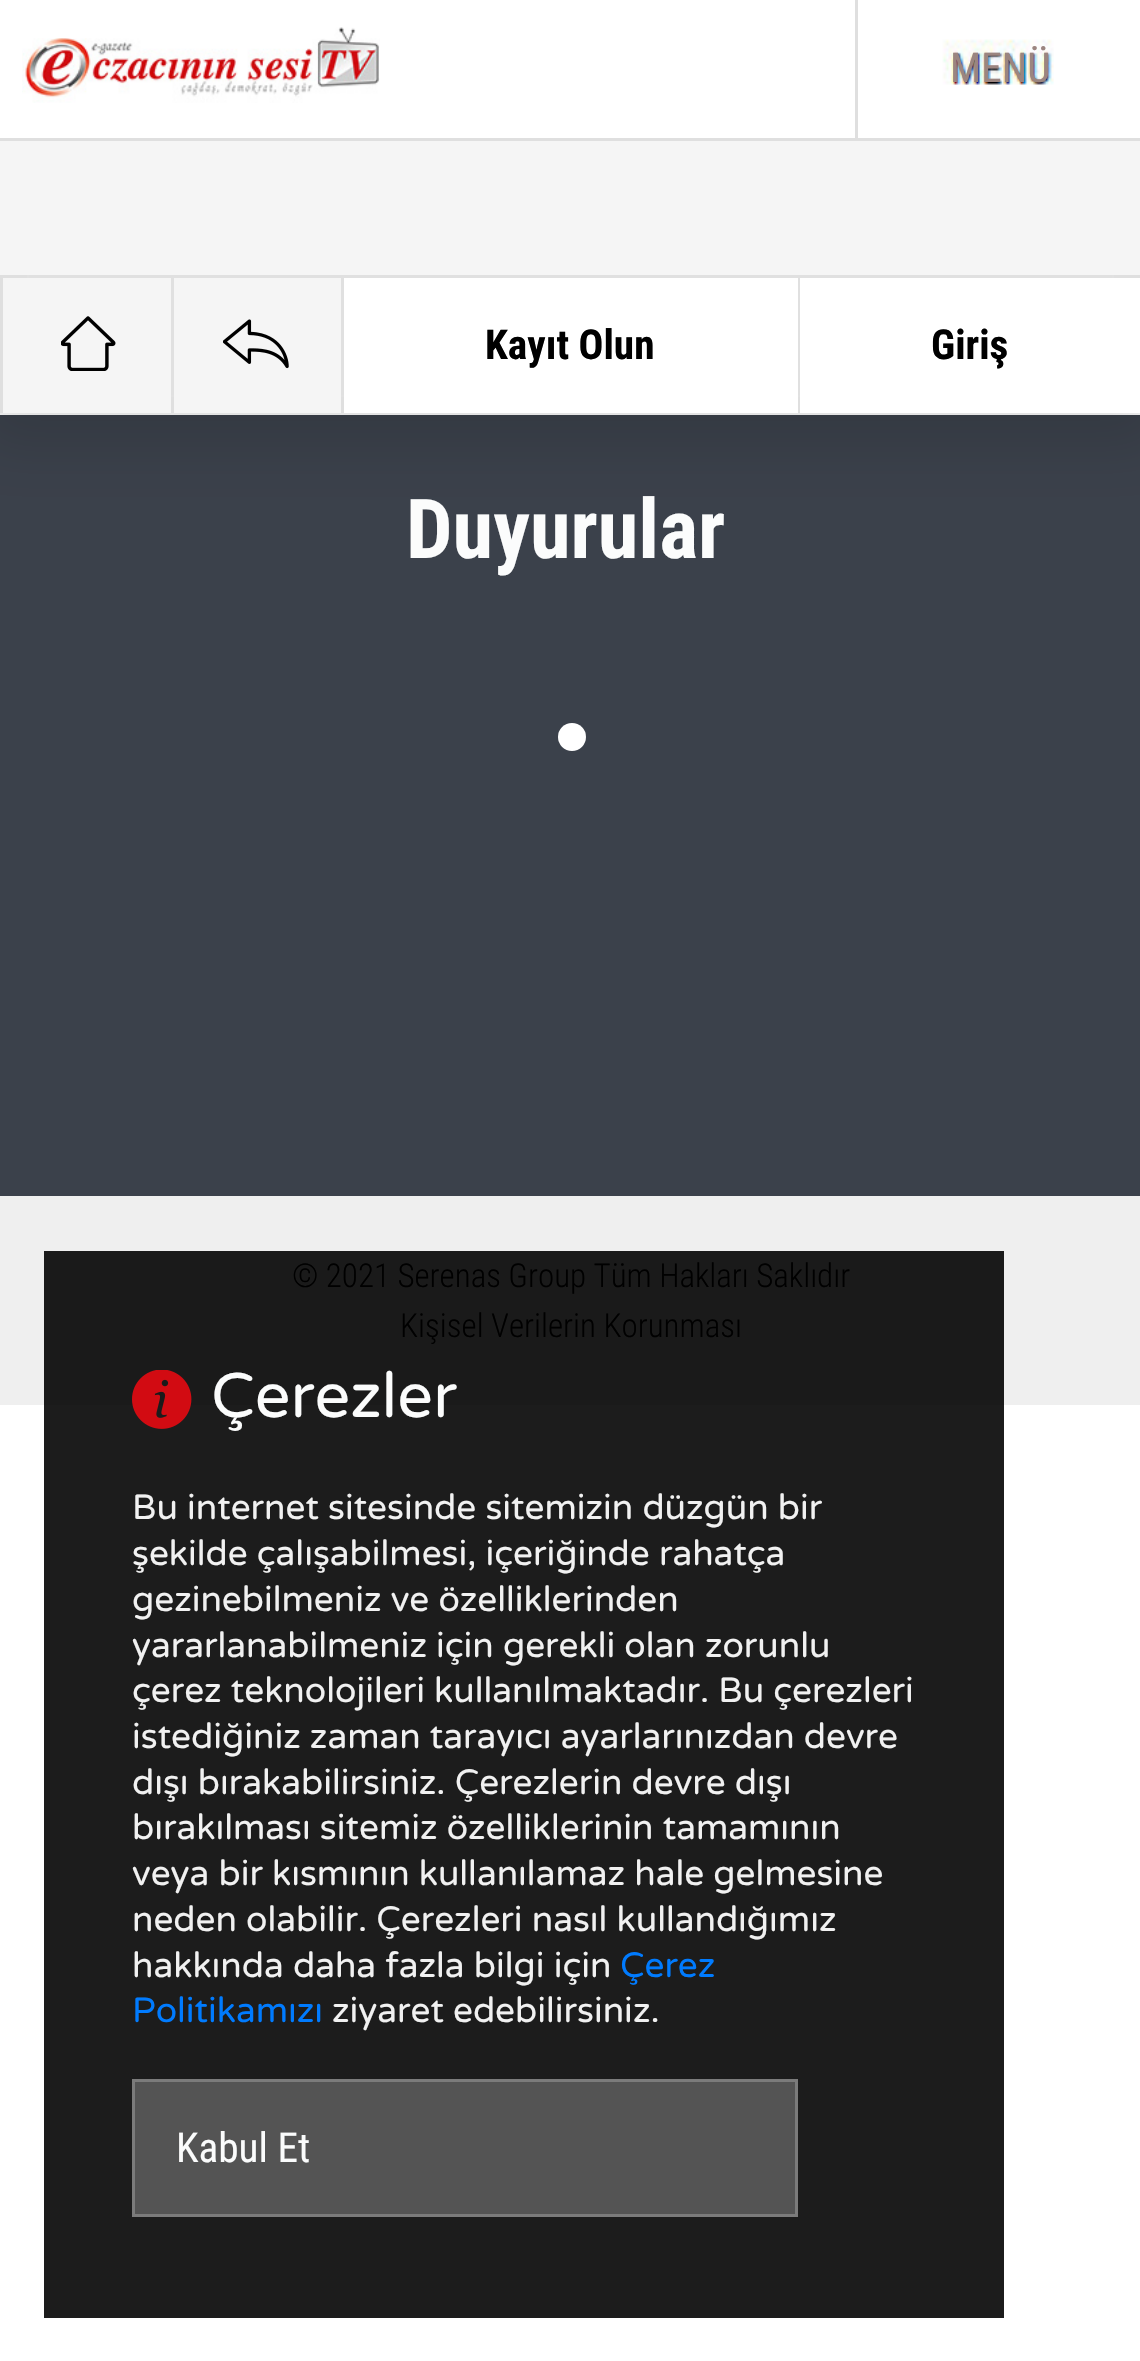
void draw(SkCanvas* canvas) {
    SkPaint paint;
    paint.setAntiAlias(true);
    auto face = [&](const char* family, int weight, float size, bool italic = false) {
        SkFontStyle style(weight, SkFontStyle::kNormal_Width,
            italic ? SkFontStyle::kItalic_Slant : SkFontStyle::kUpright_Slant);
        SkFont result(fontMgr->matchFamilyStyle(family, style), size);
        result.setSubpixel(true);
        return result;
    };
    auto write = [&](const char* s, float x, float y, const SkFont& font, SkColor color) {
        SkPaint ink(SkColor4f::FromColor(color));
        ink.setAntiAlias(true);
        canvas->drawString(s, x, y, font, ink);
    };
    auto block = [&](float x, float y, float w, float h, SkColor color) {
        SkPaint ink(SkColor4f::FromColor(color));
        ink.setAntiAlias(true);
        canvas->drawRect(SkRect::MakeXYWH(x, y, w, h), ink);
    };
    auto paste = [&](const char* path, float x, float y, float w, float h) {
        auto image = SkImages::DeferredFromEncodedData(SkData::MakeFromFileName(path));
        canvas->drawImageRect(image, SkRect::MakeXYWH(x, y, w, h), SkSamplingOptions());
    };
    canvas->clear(SK_ColorWHITE);
    block(44, 1405, 960, 913, SkColorSetRGB(28, 28, 28));
    block(0, 415, 1140, 781, SkColorSetRGB(59, 65, 75));
    paint.setColor(SkColorSetARGB(31, 0, 0, 0));
    paint.setMaskFilter(SkMaskFilter::MakeBlur(kNormal_SkBlurStyle, 27.5f));
    canvas->drawRect(SkRect::MakeXYWH(-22, -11, 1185, 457), paint);
    paint.setMaskFilter(nullptr);
    block(0, 0, 1140, 138, SK_ColorWHITE);
    paste("pic1.png", 22, 27, 358, 76);
    block(855, 0, 3, 138, SkColorSetRGB(223, 223, 223));
    paste("pic2.png", 942, 39, 112, 46);
    auto kFont1 = face("Roboto Condensed", 400, 41.25f);
    write("MENÜ", 950, 82, kFont1, SkColorSetRGB(155, 133, 128));
    block(0, 141, 1140, 134, SkColorSetRGB(245, 245, 245));
    block(0, 138, 1140, 3, SkColorSetRGB(223, 223, 223));
    block(344, 278, 454, 135, SK_ColorWHITE);
    block(3, 278, 168, 135, SkColorSetRGB(245, 245, 245));
    paste("pic3.png", 61, 316, 55, 55);
    block(0, 275, 27, 3, SkColorSetRGB(223, 223, 223));
    block(0, 275, 3, 138, SkColorSetRGB(223, 223, 223));
    block(174, 278, 167, 135, SkColorSetRGB(245, 245, 245));
    paste("pic4.png", 223, 319, 66, 50);
    block(341, 397, 3, 16, SkColorSetRGB(223, 223, 223));
    block(171, 397, 3, 16, SkColorSetRGB(223, 223, 223));
    block(798, 397, 2, 16, SkColorSetRGB(223, 223, 223));
    auto kFont2 = face("Roboto Condensed", 700, 41.25f);
    write("Kayıt Olun", 485, 359, kFont2, SK_ColorBLACK);
    block(800, 278, 340, 135, SK_ColorWHITE);
    block(1114, 275, 26, 3, SkColorSetRGB(223, 223, 223));
    write("Giriş", 931, 359, kFont2, SK_ColorBLACK);
    auto kFont3 = face("Roboto Condensed", 700, 82.5f);
    write("Duyurular", 406, 558, kFont3, SkColorSetRGB(251, 252, 252));
    paint.setColor(SK_ColorWHITE);
    canvas->drawCircle(572, 737, 14, paint);
    block(0, 1196, 1140, 209, SkColorSetRGB(239, 239, 239));
    block(44, 1251, 960, 154, SkColorSetRGB(26, 26, 26));
    auto kFont4 = face("Roboto Condensed", 300, 33);
    write("© 2021 Serenas Group Tüm Hakları Saklıdır", 292, 1287, kFont4, SK_ColorBLACK);
    write("Kişisel Verilerin Korunması", 400, 1337, kFont4, SK_ColorBLACK);
    paste("pic5.png", 132, 1370, 60, 59);
    auto kFont5 = face("Varela Round", 400, 63);
    write("Çerezler", 211, 1417, kFont5, SkColorSetRGB(251, 252, 252));
    auto kFont6 = face("Varela Round", 400, 35.2f);
    write("Bu internet sitesinde sitemizin düzgün bir", 132, 1519, kFont6, SkColorSetRGB(241, 241, 241));
    write("şekilde çalışabilmesi, içeriğinde rahatça", 132, 1565, kFont6, SkColorSetRGB(241, 241, 241));
    write("gezinebilmeniz ve özelliklerinden", 132, 1611, kFont6, SkColorSetRGB(241, 241, 241));
    write("yararlanabilmeniz için gerekli olan zorunlu", 132, 1657, kFont6, SkColorSetRGB(241, 241, 241));
    write("çerez teknolojileri kullanılmaktadır. Bu çerezleri", 132, 1702, kFont6, SkColorSetRGB(241, 241, 241));
    write("istediğiniz zaman tarayıcı ayarlarınızdan devre", 132, 1748, kFont6, SkColorSetRGB(241, 241, 241));
    write("dışı bırakabilirsiniz. Çerezlerin devre dışı", 132, 1794, kFont6, SkColorSetRGB(241, 241, 241));
    write("bırakılması sitemiz özelliklerinin tamamının", 132, 1839, kFont6, SkColorSetRGB(241, 241, 241));
    write("veya bir kısmının kullanılamaz hale gelmesine", 132, 1885, kFont6, SkColorSetRGB(241, 241, 241));
    write("neden olabilir. Çerezleri nasıl kullandığımız", 132, 1931, kFont6, SkColorSetRGB(241, 241, 241));
    write("hakkında daha fazla bilgi için", 132, 1977, kFont6, SkColorSetRGB(241, 241, 241));
    write("Çerez", 620, 1977, kFont6, SkColorSetRGB(0, 123, 255));
    write("Politikamızı", 132, 2022, kFont6, SkColorSetRGB(0, 123, 255));
    write("ziyaret edebilirsiniz.", 332, 2022, kFont6, SkColorSetRGB(241, 241, 241));
    paint.setColor(SkColorSetRGB(84, 84, 84));
    canvas->drawRect(SkRect::MakeXYWH(133.5f, 2080.5f, 663, 135), paint);
    paint.setStyle(SkPaint::kStroke_Style);
    paint.setStrokeWidth(3);
    paint.setColor(SkColorSetRGB(123, 123, 123));
    canvas->drawRect(SkRect::MakeXYWH(133.5f, 2080.5f, 663, 135), paint);
    write("Kabul Et", 176, 2162, kFont1, SkColorSetRGB(251, 252, 252));
}
